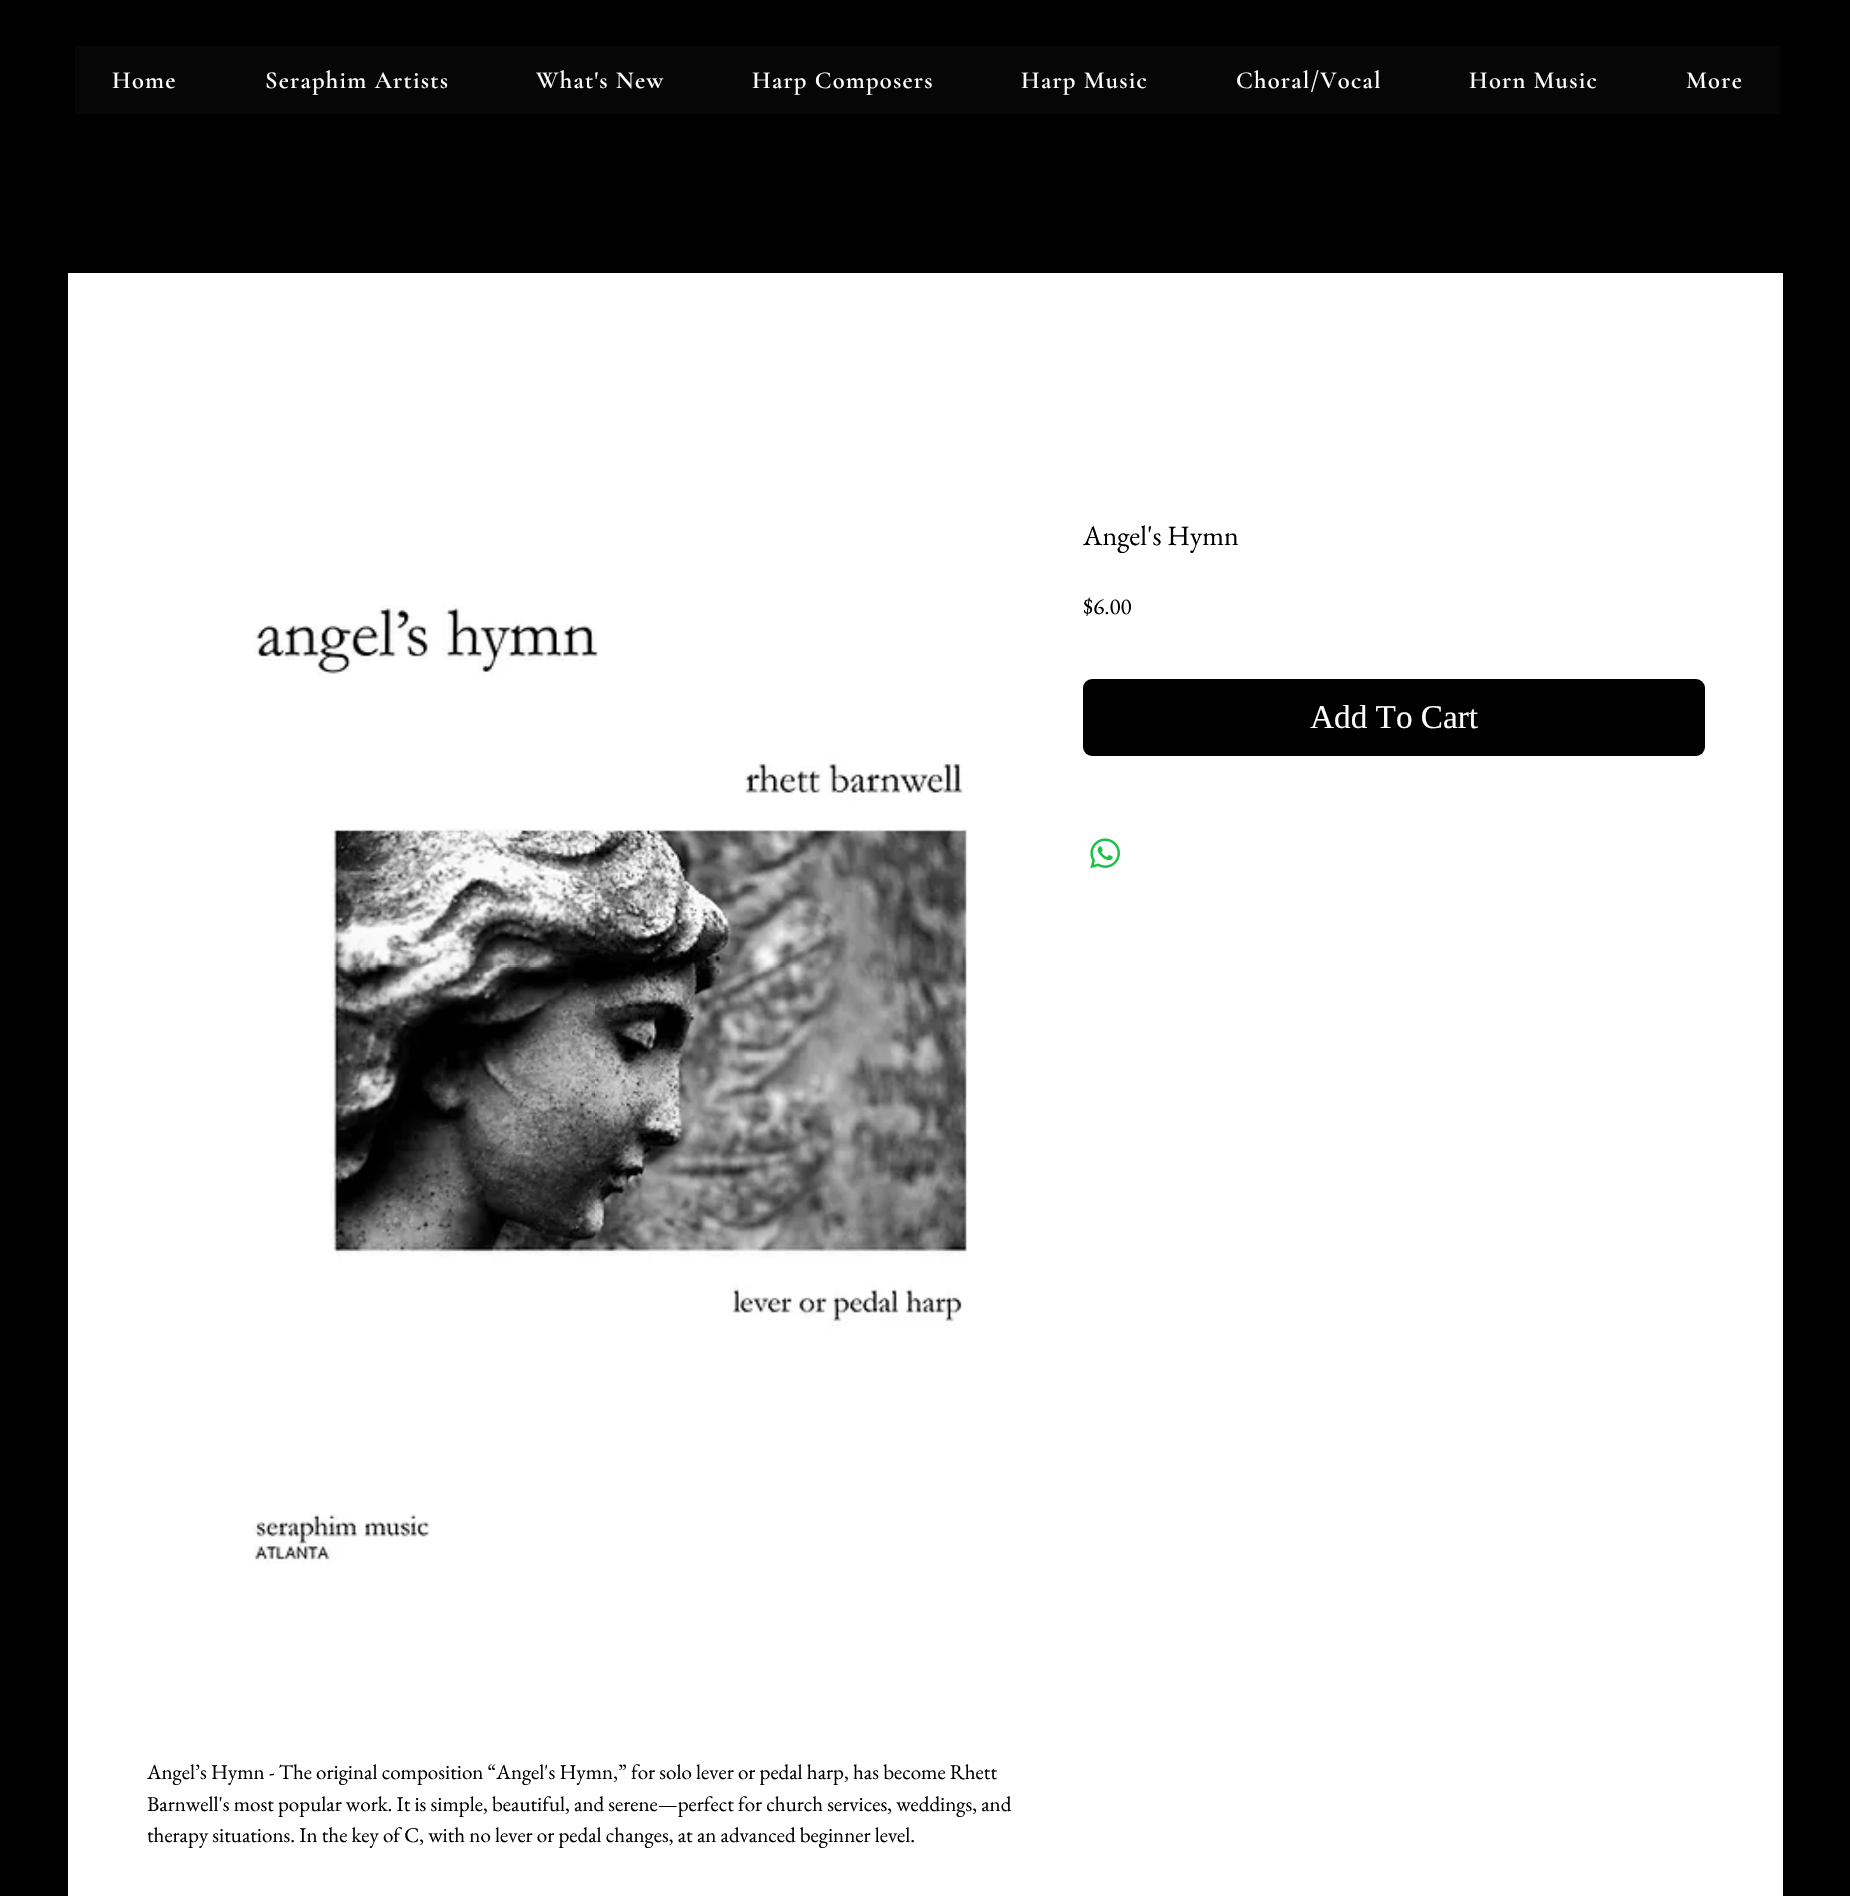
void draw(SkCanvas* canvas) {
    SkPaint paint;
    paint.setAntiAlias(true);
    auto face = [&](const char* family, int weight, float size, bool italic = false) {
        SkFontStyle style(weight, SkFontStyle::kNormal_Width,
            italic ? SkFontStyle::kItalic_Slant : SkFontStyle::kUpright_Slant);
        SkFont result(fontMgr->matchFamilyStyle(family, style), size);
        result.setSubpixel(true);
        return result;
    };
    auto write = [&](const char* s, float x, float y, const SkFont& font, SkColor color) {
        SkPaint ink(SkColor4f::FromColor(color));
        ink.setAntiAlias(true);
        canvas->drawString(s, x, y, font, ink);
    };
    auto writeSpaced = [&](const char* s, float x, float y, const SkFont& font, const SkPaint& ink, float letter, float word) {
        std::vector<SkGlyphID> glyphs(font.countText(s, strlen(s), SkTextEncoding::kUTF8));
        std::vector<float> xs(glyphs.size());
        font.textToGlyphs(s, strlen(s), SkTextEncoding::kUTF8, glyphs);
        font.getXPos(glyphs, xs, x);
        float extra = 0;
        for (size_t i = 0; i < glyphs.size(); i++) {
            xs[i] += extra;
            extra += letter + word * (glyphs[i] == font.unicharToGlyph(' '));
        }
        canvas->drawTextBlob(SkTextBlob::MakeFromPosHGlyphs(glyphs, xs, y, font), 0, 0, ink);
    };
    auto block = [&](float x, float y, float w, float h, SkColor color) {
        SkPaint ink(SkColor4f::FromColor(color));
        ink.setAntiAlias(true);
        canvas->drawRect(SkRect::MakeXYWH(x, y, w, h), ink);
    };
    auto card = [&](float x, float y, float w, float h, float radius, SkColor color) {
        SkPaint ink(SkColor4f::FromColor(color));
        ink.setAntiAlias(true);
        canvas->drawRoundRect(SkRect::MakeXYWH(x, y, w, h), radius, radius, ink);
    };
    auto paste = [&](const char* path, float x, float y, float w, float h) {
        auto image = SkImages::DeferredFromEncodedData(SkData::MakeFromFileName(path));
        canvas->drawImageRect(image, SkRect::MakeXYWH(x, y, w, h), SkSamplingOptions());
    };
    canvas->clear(SK_ColorBLACK);
    block(75, 46, 1705, 68, SkColorSetRGB(7, 6, 6));
    auto kFont1 = face("Cormorant Garamond", 600, 24.5f);
    paint.setColor(SK_ColorWHITE);
    writeSpaced("Home", 112, 88, kFont1, paint, 1.25f, 0);
    writeSpaced("Seraphim Artists", 265, 88, kFont1, paint, 1.25f, 0);
    writeSpaced("What's New", 536, 88, kFont1, paint, 1.25f, 0);
    writeSpaced("Harp Composers", 752, 88, kFont1, paint, 1.25f, 0);
    writeSpaced("Harp Music", 1021, 88, kFont1, paint, 1.25f, 0);
    writeSpaced("Choral/Vocal", 1236, 88, kFont1, paint, 1.25f, 0);
    writeSpaced("Horn Music", 1469, 88, kFont1, paint, 1.25f, 0);
    writeSpaced("More", 1686, 88, kFont1, paint, 1.25f, 0);
    block(68, 273, 1715, 1623, SK_ColorWHITE);
    auto kFont2 = face("EB Garamond", 400, 28);
    write("Angel's Hymn", 1083, 545, kFont2, SK_ColorBLACK);
    auto kFont3 = face("EB Garamond", 400, 23);
    write("$6.00", 1083, 614, kFont3, SK_ColorBLACK);
    card(1083, 679, 622, 77, 9, SK_ColorBLACK);
    auto kFont4 = face("Liberation Serif", 400, 33.25f);
    write("Add To Cart", 1310, 728, kFont4, SK_ColorWHITE);
    paste("pic1.png", 1090, 838, 30, 31);
    paste("pic2.png", 253, 605, 715, 959);
    auto kFont5 = face("EB Garamond", 400, 21);
    write("Angel’s Hymn - The original composition “Angel's Hymn,” for solo lever or pedal harp, has become Rhett", 147, 1779, kFont5, SK_ColorBLACK);
    write("Barnwell's most popular work. It is simple, beautiful, and serene—perfect for church services, weddings, and", 147, 1811, kFont5, SK_ColorBLACK);
    write("therapy situations. In the key of C, with no lever or pedal changes, at an advanced beginner level.", 147, 1842, kFont5, SK_ColorBLACK);
}
